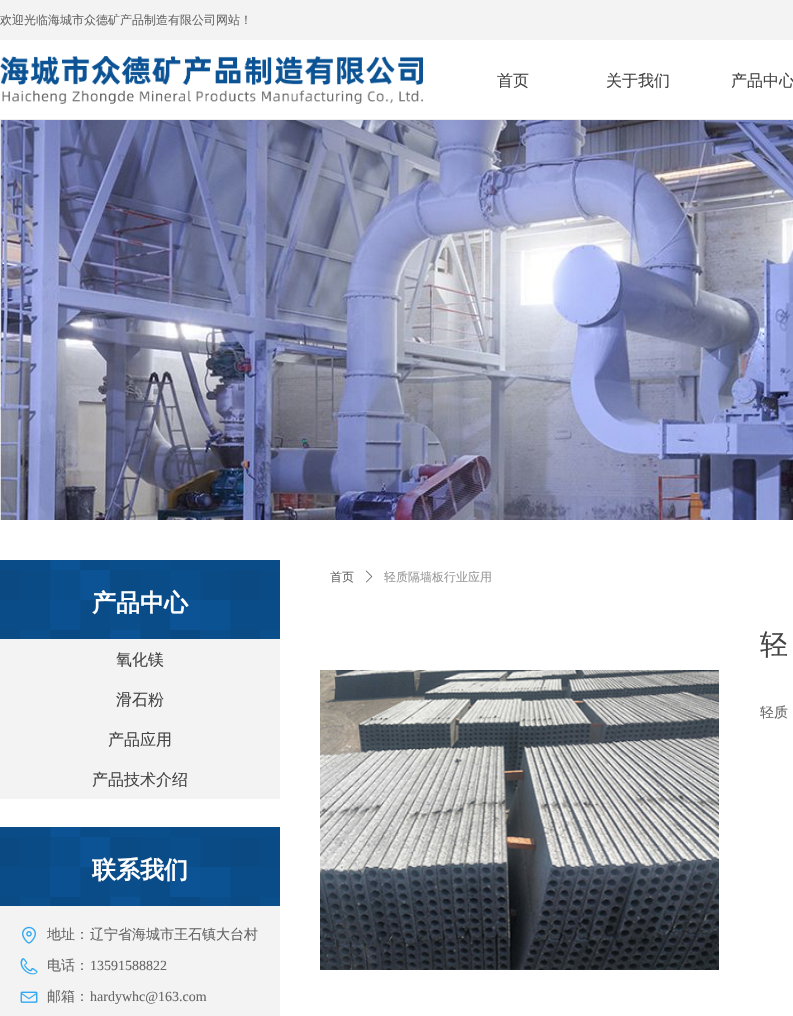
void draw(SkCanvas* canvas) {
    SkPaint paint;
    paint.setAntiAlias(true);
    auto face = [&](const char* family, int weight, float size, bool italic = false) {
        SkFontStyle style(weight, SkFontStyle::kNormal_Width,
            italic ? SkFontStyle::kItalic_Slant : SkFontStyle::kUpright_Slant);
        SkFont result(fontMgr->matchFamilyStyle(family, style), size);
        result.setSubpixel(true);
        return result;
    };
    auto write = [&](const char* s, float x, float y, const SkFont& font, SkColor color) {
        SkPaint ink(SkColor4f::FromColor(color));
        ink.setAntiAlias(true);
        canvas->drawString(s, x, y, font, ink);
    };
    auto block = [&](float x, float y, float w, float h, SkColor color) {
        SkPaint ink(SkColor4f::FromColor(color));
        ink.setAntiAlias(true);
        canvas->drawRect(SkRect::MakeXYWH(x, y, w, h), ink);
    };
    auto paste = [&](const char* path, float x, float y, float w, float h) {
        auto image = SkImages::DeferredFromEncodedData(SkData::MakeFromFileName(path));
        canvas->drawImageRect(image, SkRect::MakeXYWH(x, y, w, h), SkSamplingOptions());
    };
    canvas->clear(SK_ColorWHITE);
    block(0, 0, 793, 40, SkColorSetRGB(243, 243, 243));
    auto kFont1 = face("WenQuanYi Zen Hei", 500, 12);
    write("欢迎光临海城市众德矿产品制造有限公司网站！", 0, 24, kFont1, SkColorSetRGB(102, 102, 102));
    paste("pic1.png", 0, 56, 423, 48);
    auto kFont2 = face("WenQuanYi Zen Hei", 500, 16);
    write("首页", 497, 86, kFont2, SkColorSetRGB(68, 68, 68));
    write("关于我们", 606, 86, kFont2, SkColorSetRGB(68, 68, 68));
    write("产品中心", 731, 86, kFont2, SkColorSetRGB(68, 68, 68));
    block(0, 119, 793, 1, SkColorSetRGB(238, 238, 238));
    paste("pic2.png", 0, 120, 793, 400);
    write("首页", 330, 581, kFont1, SkColorSetRGB(102, 102, 102));
    paste("pic3.png", 365, 570, 8, 13);
    write("轻质隔墙板行业应用", 384, 581, kFont1, SkColorSetRGB(153, 153, 153));
    paste("pic4.png", 0, 560, 280, 79);
    auto kFont3 = face("WenQuanYi Zen Hei", 700, 24);
    write("产品中心", 92, 611, kFont3, SK_ColorWHITE);
    auto kFont4 = face("WenQuanYi Zen Hei", 500, 28);
    write("轻", 760, 654, kFont4, SkColorSetRGB(68, 68, 68));
    block(0, 639, 280, 160, SkColorSetRGB(243, 243, 243));
    write("氧化镁", 116, 665, kFont2, SkColorSetRGB(68, 68, 68));
    write("滑石粉", 116, 705, kFont2, SkColorSetRGB(68, 68, 68));
    write("产品应用", 108, 745, kFont2, SkColorSetRGB(68, 68, 68));
    write("产品技术介绍", 92, 785, kFont2, SkColorSetRGB(68, 68, 68));
    paste("pic5.png", 320, 670, 399, 300);
    auto kFont5 = face("WenQuanYi Zen Hei", 500, 14);
    write("轻质", 760, 717, kFont5, SkColorSetRGB(102, 102, 102));
    paste("pic4.png", 0, 827, 280, 79);
    write("联系我们", 92, 878, kFont3, SK_ColorWHITE);
    block(0, 906, 280, 110, SkColorSetRGB(243, 243, 243));
    paste("pic6.png", 22, 926, 14, 18);
    write("地址：", 47, 939, kFont5, SkColorSetRGB(102, 102, 102));
    write("辽宁省海城市王石镇大台村", 90, 939, kFont5, SkColorSetRGB(102, 102, 102));
    paste("pic7.png", 20, 958, 18, 17);
    write("电话：", 47, 970, kFont5, SkColorSetRGB(102, 102, 102));
    auto kFont6 = face("Liberation Serif", 400, 14);
    write("13591588822", 90, 970, kFont6, SkColorSetRGB(102, 102, 102));
    paste("pic8.png", 20, 991, 18, 12);
    write("邮箱：", 47, 1001, kFont5, SkColorSetRGB(102, 102, 102));
    write("hardywhc@163.com", 90, 1001, kFont6, SkColorSetRGB(102, 102, 102));
}
